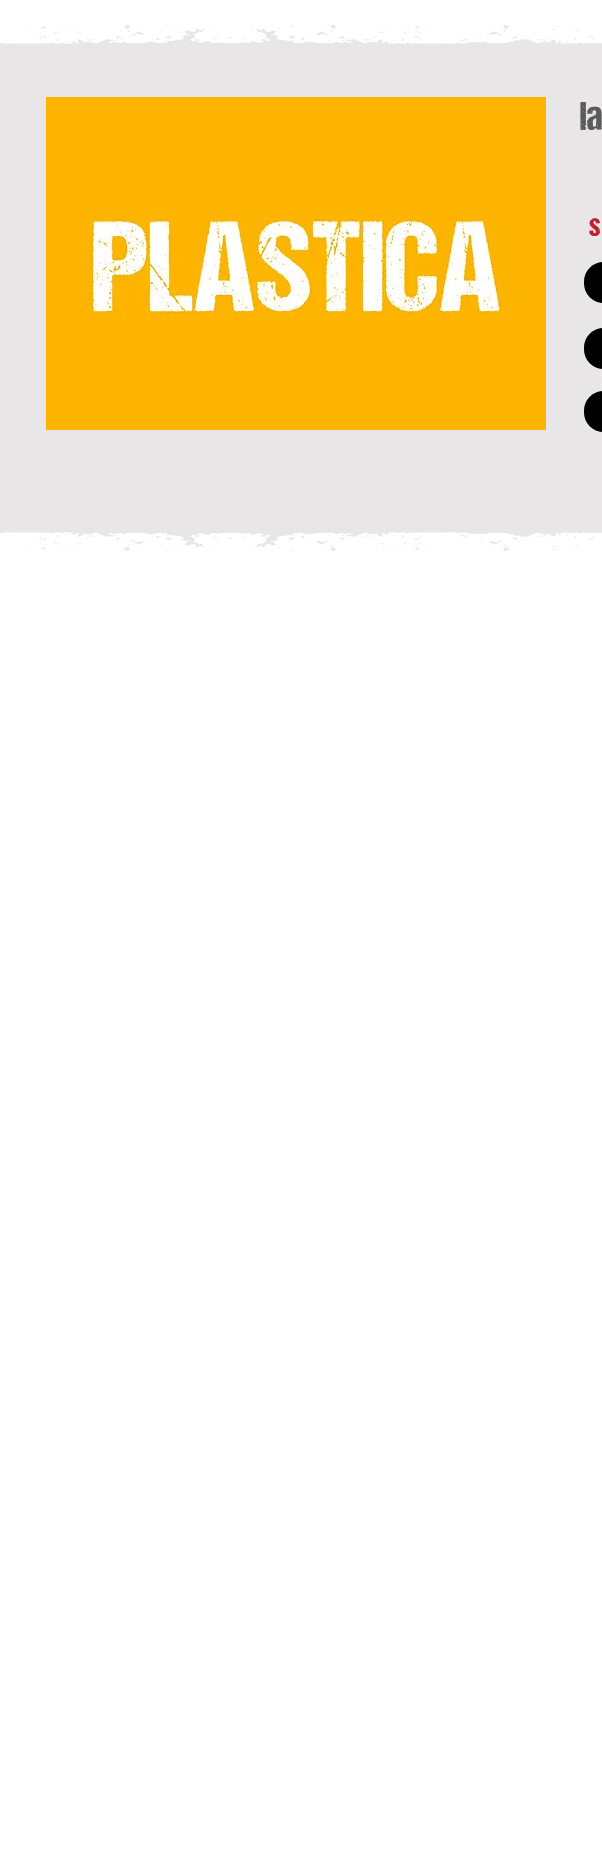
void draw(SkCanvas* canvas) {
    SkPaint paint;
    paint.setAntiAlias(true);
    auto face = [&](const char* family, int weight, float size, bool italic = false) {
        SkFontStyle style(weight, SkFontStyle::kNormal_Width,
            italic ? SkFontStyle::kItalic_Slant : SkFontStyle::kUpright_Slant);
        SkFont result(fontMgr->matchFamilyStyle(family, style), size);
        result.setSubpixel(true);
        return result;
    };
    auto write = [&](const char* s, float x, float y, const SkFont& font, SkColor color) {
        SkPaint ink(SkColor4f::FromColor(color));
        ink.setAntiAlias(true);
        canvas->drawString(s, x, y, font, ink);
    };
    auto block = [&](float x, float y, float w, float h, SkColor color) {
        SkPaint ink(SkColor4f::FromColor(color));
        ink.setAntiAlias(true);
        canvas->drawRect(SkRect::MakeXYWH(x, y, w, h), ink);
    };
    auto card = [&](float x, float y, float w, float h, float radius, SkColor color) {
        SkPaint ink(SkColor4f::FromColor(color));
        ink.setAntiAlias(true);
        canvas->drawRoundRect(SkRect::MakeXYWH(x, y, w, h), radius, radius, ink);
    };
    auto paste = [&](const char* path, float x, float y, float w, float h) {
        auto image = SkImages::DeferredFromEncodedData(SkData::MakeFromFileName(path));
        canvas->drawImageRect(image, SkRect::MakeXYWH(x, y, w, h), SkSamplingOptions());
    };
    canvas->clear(SK_ColorWHITE);
    block(0, 24, 602, 528, SkColorSetRGB(232, 230, 230));
    paste("pic1.png", 0, 0, 602, 44);
    paste("pic2.png", 46, 97, 500, 333);
    auto kFont1 = face("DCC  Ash", 400, 40);
    write("la", 580, 130, kFont1, SkColorSetRGB(89, 89, 89));
    auto kFont2 = face("DCC  Ash", 400, 30);
    write("s", 589, 236, kFont2, SkColorSetRGB(190, 28, 44));
    card(584, 262, 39, 41, 20.5f, SK_ColorBLACK);
    card(584, 328, 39, 41, 20.5f, SK_ColorBLACK);
    card(584, 391, 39, 41, 20.5f, SK_ColorBLACK);
    paste("pic3.png", 0, 532, 602, 44);
}
